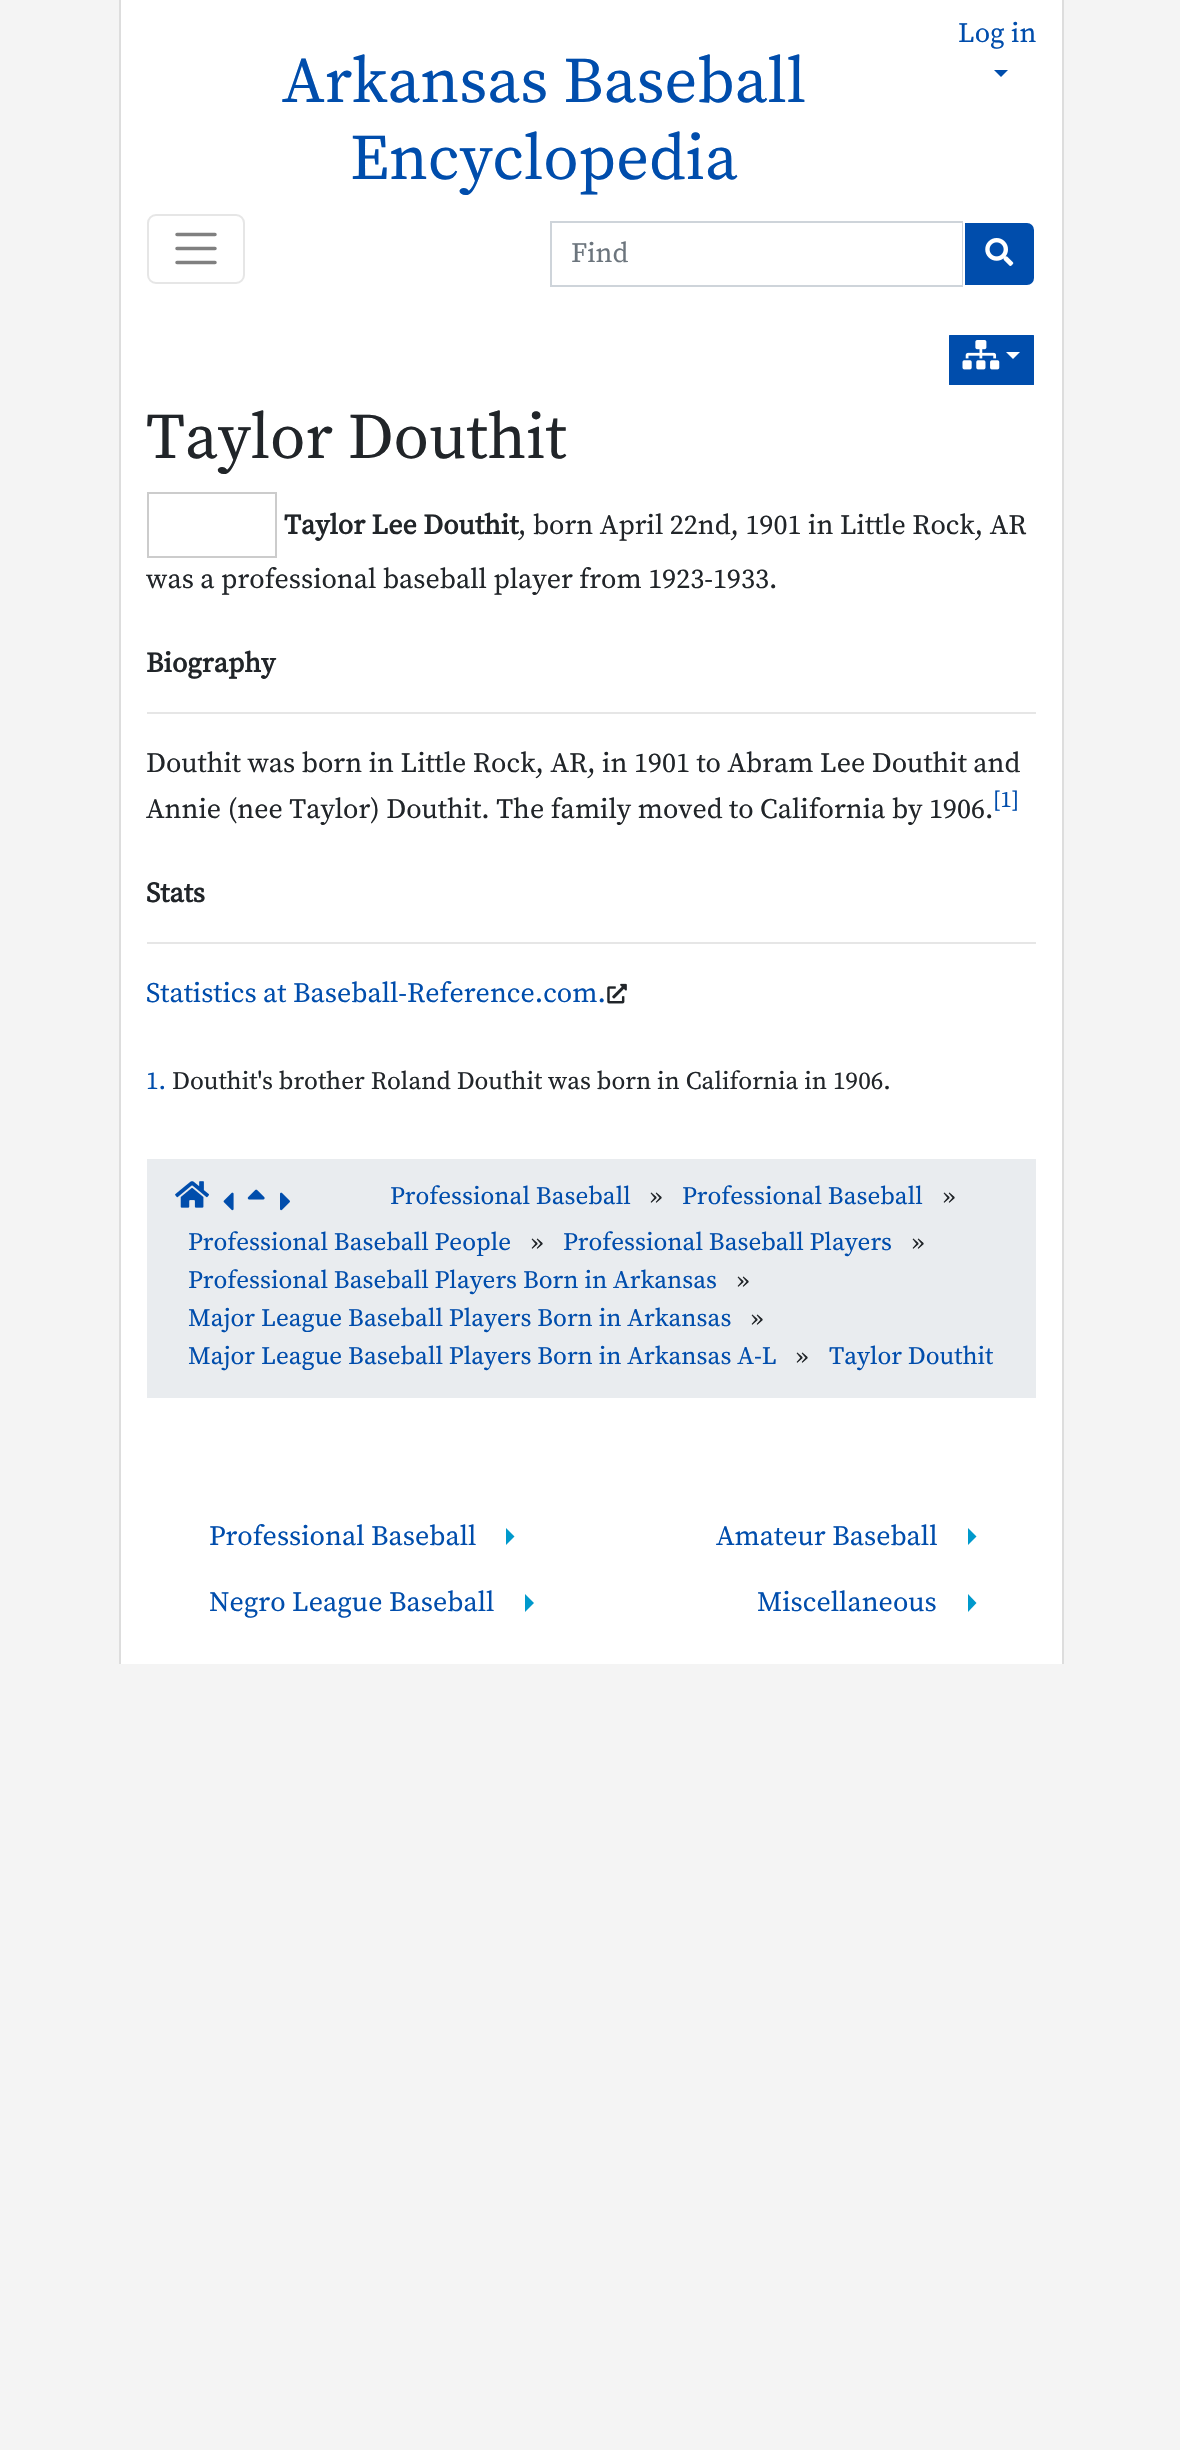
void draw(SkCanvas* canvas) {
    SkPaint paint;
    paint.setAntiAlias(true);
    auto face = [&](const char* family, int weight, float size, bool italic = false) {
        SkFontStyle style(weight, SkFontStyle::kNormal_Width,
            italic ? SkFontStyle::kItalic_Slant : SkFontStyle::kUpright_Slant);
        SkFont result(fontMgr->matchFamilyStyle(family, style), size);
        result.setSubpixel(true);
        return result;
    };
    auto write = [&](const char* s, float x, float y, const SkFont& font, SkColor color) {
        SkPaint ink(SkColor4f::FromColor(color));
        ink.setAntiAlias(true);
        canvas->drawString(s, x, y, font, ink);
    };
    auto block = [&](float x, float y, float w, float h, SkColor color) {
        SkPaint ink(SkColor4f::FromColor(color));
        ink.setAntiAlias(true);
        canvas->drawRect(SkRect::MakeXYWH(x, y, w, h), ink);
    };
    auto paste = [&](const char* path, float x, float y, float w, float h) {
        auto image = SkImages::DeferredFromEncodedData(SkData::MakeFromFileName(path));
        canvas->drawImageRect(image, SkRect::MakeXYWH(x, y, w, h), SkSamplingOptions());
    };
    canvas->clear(SkColorSetRGB(244, 244, 244));
    block(121, 0, 941, 1664, SK_ColorWHITE);
    block(1062, 0, 2, 1664, SkColorSetRGB(221, 221, 221));
    block(119, 0, 2, 1664, SkColorSetRGB(221, 221, 221));
    auto kFont1 = face("Source Serif Pro", 400, 28);
    write("Log in", 958, 42, kFont1, SkColorSetRGB(0, 77, 172));
    paint.setColor(SkColorSetRGB(0, 77, 172));
    canvas->drawPath(SkPathBuilder().moveTo(994, 70).lineTo(1008, 70).lineTo(1001, 77).close().detach(), paint);
    auto kFont2 = face("Source Serif Pro", 400, 64.5f);
    write("Arkansas Baseball", 282, 102, kFont2, SkColorSetRGB(0, 77, 172));
    write("Encyclopedia", 350, 179, kFont2, SkColorSetRGB(0, 77, 172));
    paint.setStyle(SkPaint::kStroke_Style);
    paint.setStrokeWidth(2);
    paint.setColor(SkColorSetRGB(230, 230, 230));
    canvas->drawRoundRect(SkRect::MakeXYWH(148, 215, 96, 68), 8, 8, paint);
    paint.setStrokeWidth(3.5f);
    paint.setStrokeCap(SkPaint::kRound_Cap);
    paint.setColor(SkColorSetRGB(128, 128, 128));
    canvas->drawPath(SkPathBuilder().moveTo(177, 234.5f).lineTo(215, 234.5f).moveTo(177, 248.5f).lineTo(215, 248.5f).moveTo(177, 262.5f).lineTo(215, 262.5f).detach(), paint);
    paint.setStrokeWidth(2);
    paint.setStrokeCap(SkPaint::kButt_Cap);
    paint.setColor(SkColorSetRGB(206, 212, 218));
    canvas->drawRect(SkRect::MakeXYWH(551, 222, 412, 64), paint);
    write("Find", 571, 262, kFont1, SkColorSetRGB(108, 117, 125));
    paint.setStyle(SkPaint::kFill_Style);
    paint.setColor(SkColorSetRGB(0, 77, 172));
    canvas->drawPath(SkPathBuilder().moveTo(964, 222).lineTo(1027, 222).cubicTo(1031.5f, 222, 1035, 225.5f, 1035, 230).lineTo(1035, 278).cubicTo(1035, 282.5f, 1031.5f, 286, 1027, 286).lineTo(964, 286).close().detach(), paint);
    paint.setStyle(SkPaint::kStroke_Style);
    paint.setColor(SK_ColorWHITE);
    canvas->drawPath(SkPathBuilder().moveTo(964, 222).lineTo(1027, 222).cubicTo(1031.5f, 222, 1035, 225.5f, 1035, 230).lineTo(1035, 278).cubicTo(1035, 282.5f, 1031.5f, 286, 1027, 286).lineTo(964, 286).close().detach(), paint);
    paste("pic1.png", 985, 238, 29, 28);
    paint.setStyle(SkPaint::kFill_Style);
    paint.setColor(SkColorSetRGB(0, 77, 172));
    canvas->drawRoundRect(SkRect::MakeXYWH(948, 334, 87, 52), 1.5f, 1.5f, paint);
    paint.setStyle(SkPaint::kStroke_Style);
    paint.setColor(SK_ColorWHITE);
    canvas->drawRoundRect(SkRect::MakeXYWH(948, 334, 87, 52), 1.5f, 1.5f, paint);
    paste("pic2.png", 962, 340, 38, 30);
    paint.setStyle(SkPaint::kFill_Style);
    canvas->drawPath(SkPathBuilder().moveTo(1006, 352).lineTo(1020, 352).lineTo(1013, 359).close().detach(), paint);
    write("Taylor Douthit", 146, 458, kFont2, SkColorSetRGB(33, 37, 41));
    paint.setStyle(SkPaint::kStroke_Style);
    paint.setColor(SkColorSetRGB(204, 204, 204));
    canvas->drawRect(SkRect::MakeXYWH(148, 493, 128, 64), paint);
    auto kFont3 = face("Source Serif Pro", 700, 28);
    write("Taylor Lee Douthit", 284, 534, kFont3, SkColorSetRGB(33, 37, 41));
    write(", born April 22nd, 1901 in Little Rock, AR", 518, 534, kFont1, SkColorSetRGB(33, 37, 41));
    write("was a professional baseball player from 1923-1933.", 146, 588, kFont1, SkColorSetRGB(33, 37, 41));
    write("Biography", 146, 672, kFont3, SkColorSetRGB(33, 37, 41));
    block(147, 712, 889, 2, SkColorSetRGB(230, 230, 230));
    write("Douthit was born in Little Rock, AR, in 1901 to Abram Lee Douthit and", 146, 772, kFont1, SkColorSetRGB(33, 37, 41));
    write("Annie (nee Taylor) Douthit. The family moved to California by 1906.", 146, 818, kFont1, SkColorSetRGB(33, 37, 41));
    auto kFont4 = face("Source Serif Pro", 400, 23);
    write("[1]", 993, 807, kFont4, SkColorSetRGB(0, 77, 172));
    write("Stats", 146, 902, kFont3, SkColorSetRGB(33, 37, 41));
    block(147, 942, 889, 2, SkColorSetRGB(230, 230, 230));
    write("Statistics at Baseball-Reference.com.", 146, 1002, kFont1, SkColorSetRGB(0, 77, 172));
    paste("pic3.png", 607, 983, 20, 21);
    auto kFont5 = face("Source Serif Pro", 400, 25.2f);
    write("1.", 146, 1089, kFont5, SkColorSetRGB(0, 77, 172));
    write("Douthit's brother Roland Douthit was born in California in 1906.", 172, 1089, kFont5, SkColorSetRGB(33, 37, 41));
    block(147, 1159, 889, 239, SkColorSetRGB(233, 236, 239));
    paste("pic4.png", 175, 1181, 34, 27);
    paste("pic5.png", 223, 1192, 11, 19);
    paste("pic6.png", 247, 1189, 18, 11);
    paste("pic7.png", 280, 1192, 10, 19);
    write("Professional Baseball", 390, 1204, kFont5, SkColorSetRGB(0, 77, 172));
    write("»", 650, 1204, kFont5, SkColorSetRGB(33, 37, 41));
    write("Professional Baseball", 682, 1204, kFont5, SkColorSetRGB(0, 77, 172));
    write("»", 943, 1204, kFont5, SkColorSetRGB(33, 37, 41));
    write("Professional Baseball People", 188, 1250, kFont5, SkColorSetRGB(0, 77, 172));
    write("»", 531, 1250, kFont5, SkColorSetRGB(33, 37, 41));
    write("Professional Baseball Players", 563, 1250, kFont5, SkColorSetRGB(0, 77, 172));
    write("»", 912, 1250, kFont5, SkColorSetRGB(33, 37, 41));
    write("Professional Baseball Players Born in Arkansas", 188, 1288, kFont5, SkColorSetRGB(0, 77, 172));
    write("»", 737, 1288, kFont5, SkColorSetRGB(33, 37, 41));
    write("Major League Baseball Players Born in Arkansas", 188, 1326, kFont5, SkColorSetRGB(0, 77, 172));
    write("»", 751, 1326, kFont5, SkColorSetRGB(33, 37, 41));
    write("Major League Baseball Players Born in Arkansas A-L", 188, 1364, kFont5, SkColorSetRGB(0, 77, 172));
    write("»", 796, 1364, kFont5, SkColorSetRGB(33, 37, 41));
    write("Taylor Douthit", 829, 1364, kFont5, SkColorSetRGB(0, 77, 172));
    write("Professional Baseball", 209, 1545, kFont1, SkColorSetRGB(0, 77, 172));
    paint.setStyle(SkPaint::kFill_Style);
    paint.setColor(SkColorSetRGB(0, 153, 204));
    canvas->drawPath(SkPathBuilder().moveTo(506, 1545).lineTo(506, 1528).lineTo(514.5f, 1536.5f).close().detach(), paint);
    write("Amateur Baseball", 716, 1545, kFont1, SkColorSetRGB(0, 77, 172));
    canvas->drawPath(SkPathBuilder().moveTo(968, 1545).lineTo(968, 1528).lineTo(976.5f, 1536.5f).close().detach(), paint);
    write("Negro League Baseball", 209, 1611, kFont1, SkColorSetRGB(0, 77, 172));
    canvas->drawPath(SkPathBuilder().moveTo(525, 1612).lineTo(525, 1594).lineTo(534, 1603).close().detach(), paint);
    write("Miscellaneous", 757, 1611, kFont1, SkColorSetRGB(0, 77, 172));
    canvas->drawPath(SkPathBuilder().moveTo(968, 1612).lineTo(968, 1594).lineTo(976.5f, 1603).close().detach(), paint);
}
